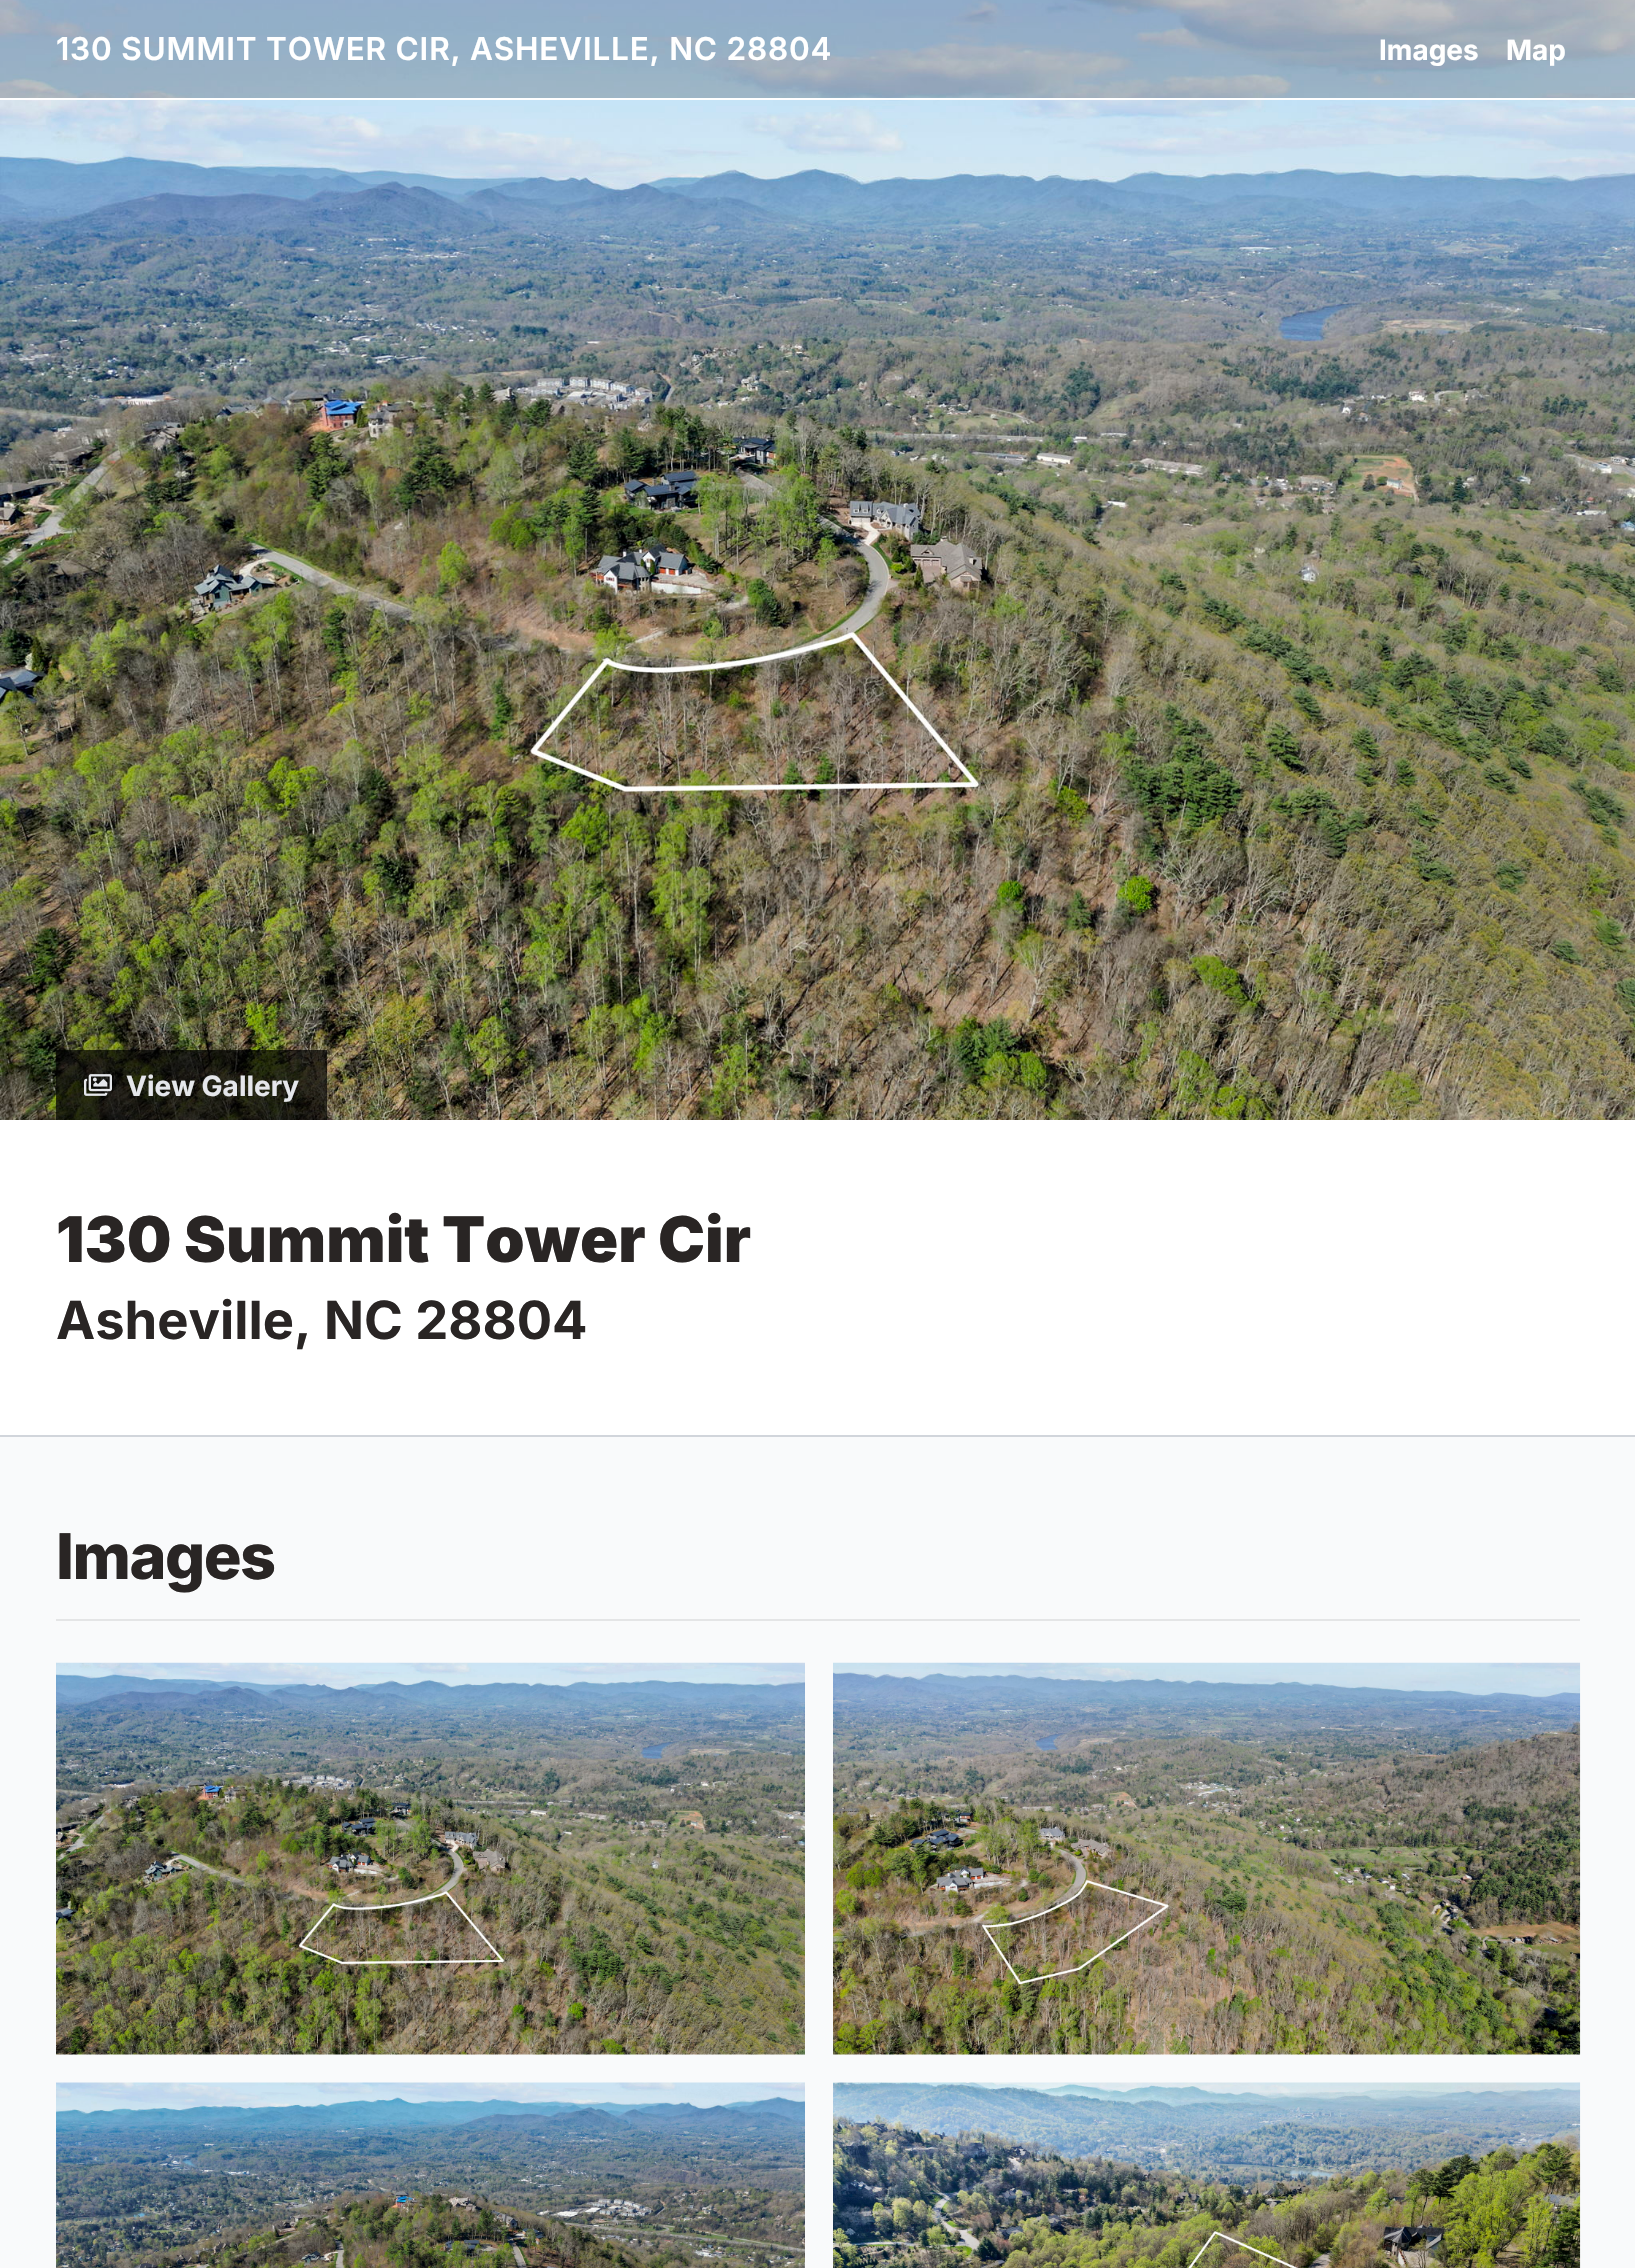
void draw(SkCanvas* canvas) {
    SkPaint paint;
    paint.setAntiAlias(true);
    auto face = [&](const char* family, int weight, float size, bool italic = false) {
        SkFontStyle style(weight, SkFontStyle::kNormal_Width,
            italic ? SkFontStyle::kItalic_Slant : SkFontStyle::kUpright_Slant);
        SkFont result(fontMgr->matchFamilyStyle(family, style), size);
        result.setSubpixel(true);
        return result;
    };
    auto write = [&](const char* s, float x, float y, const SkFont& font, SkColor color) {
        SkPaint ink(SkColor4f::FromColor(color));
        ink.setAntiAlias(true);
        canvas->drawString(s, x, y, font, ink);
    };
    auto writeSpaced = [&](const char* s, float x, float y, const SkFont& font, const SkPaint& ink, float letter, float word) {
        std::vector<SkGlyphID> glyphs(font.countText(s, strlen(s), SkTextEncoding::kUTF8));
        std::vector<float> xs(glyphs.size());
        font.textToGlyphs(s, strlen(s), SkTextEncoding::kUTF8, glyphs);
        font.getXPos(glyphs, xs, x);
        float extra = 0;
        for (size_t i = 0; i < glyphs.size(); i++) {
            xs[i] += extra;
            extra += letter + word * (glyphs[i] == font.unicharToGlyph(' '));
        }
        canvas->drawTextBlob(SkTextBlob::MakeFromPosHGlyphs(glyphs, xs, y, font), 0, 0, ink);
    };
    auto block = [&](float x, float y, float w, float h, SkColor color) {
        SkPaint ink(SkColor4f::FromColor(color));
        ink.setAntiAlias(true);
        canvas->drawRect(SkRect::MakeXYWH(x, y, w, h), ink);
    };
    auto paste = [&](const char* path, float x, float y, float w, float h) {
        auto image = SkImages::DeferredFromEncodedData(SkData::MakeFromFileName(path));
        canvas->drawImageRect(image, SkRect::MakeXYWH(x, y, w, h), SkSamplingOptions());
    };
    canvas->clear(SkColorSetRGB(249, 250, 251));
    paste("pic1.png", 0, 0, 1635, 1120);
    block(0, 0, 1635, 98, SkColorSetARGB(51, 0, 0, 0));
    block(0, 98, 1635, 2, SK_ColorWHITE);
    auto kFont1 = face("Inter", 600, 31.5f);
    paint.setColor(SK_ColorWHITE);
    writeSpaced("130 SUMMIT TOWER CIR, ASHEVILLE, NC 28804", 56, 60, kFont1, paint, 0.8f, 0);
    auto kFont2 = face("Inter", 700, 28);
    write("Images", 1379, 60, kFont2, SK_ColorWHITE);
    write("Map", 1506, 60, kFont2, SK_ColorWHITE);
    block(56, 1050, 271, 70, SkColorSetARGB(179, 0, 0, 0));
    paste("pic2.png", 84, 1074, 28, 22);
    write("View Gallery", 126, 1096, kFont2, SkColorSetRGB(229, 231, 235));
    block(0, 1120, 1635, 315, SK_ColorWHITE);
    block(0, 1435, 1635, 2, SkColorSetRGB(209, 213, 219));
    auto kFont3 = face("Inter", 900, 63);
    write("130 Summit Tower Cir", 56, 1262, kFont3, SkColorSetRGB(41, 37, 36));
    auto kFont4 = face("Inter", 700, 52.5f);
    write("Asheville, NC 28804", 56, 1339, kFont4, SkColorSetRGB(41, 37, 36));
    auto kFont5 = face("Inter", 800, 63);
    paint.setColor(SkColorSetRGB(41, 37, 36));
    writeSpaced("Images", 56, 1579, kFont5, paint, -1.5f, 0);
    block(56, 1619, 1524, 2, SkColorSetRGB(228, 229, 230));
    paste("pic3.png", 56, 1662, 749, 393);
    paste("pic4.png", 833, 1662, 748, 393);
    paste("pic5.png", 56, 2082, 749, 186);
    paste("pic6.png", 833, 2082, 748, 186);
}
